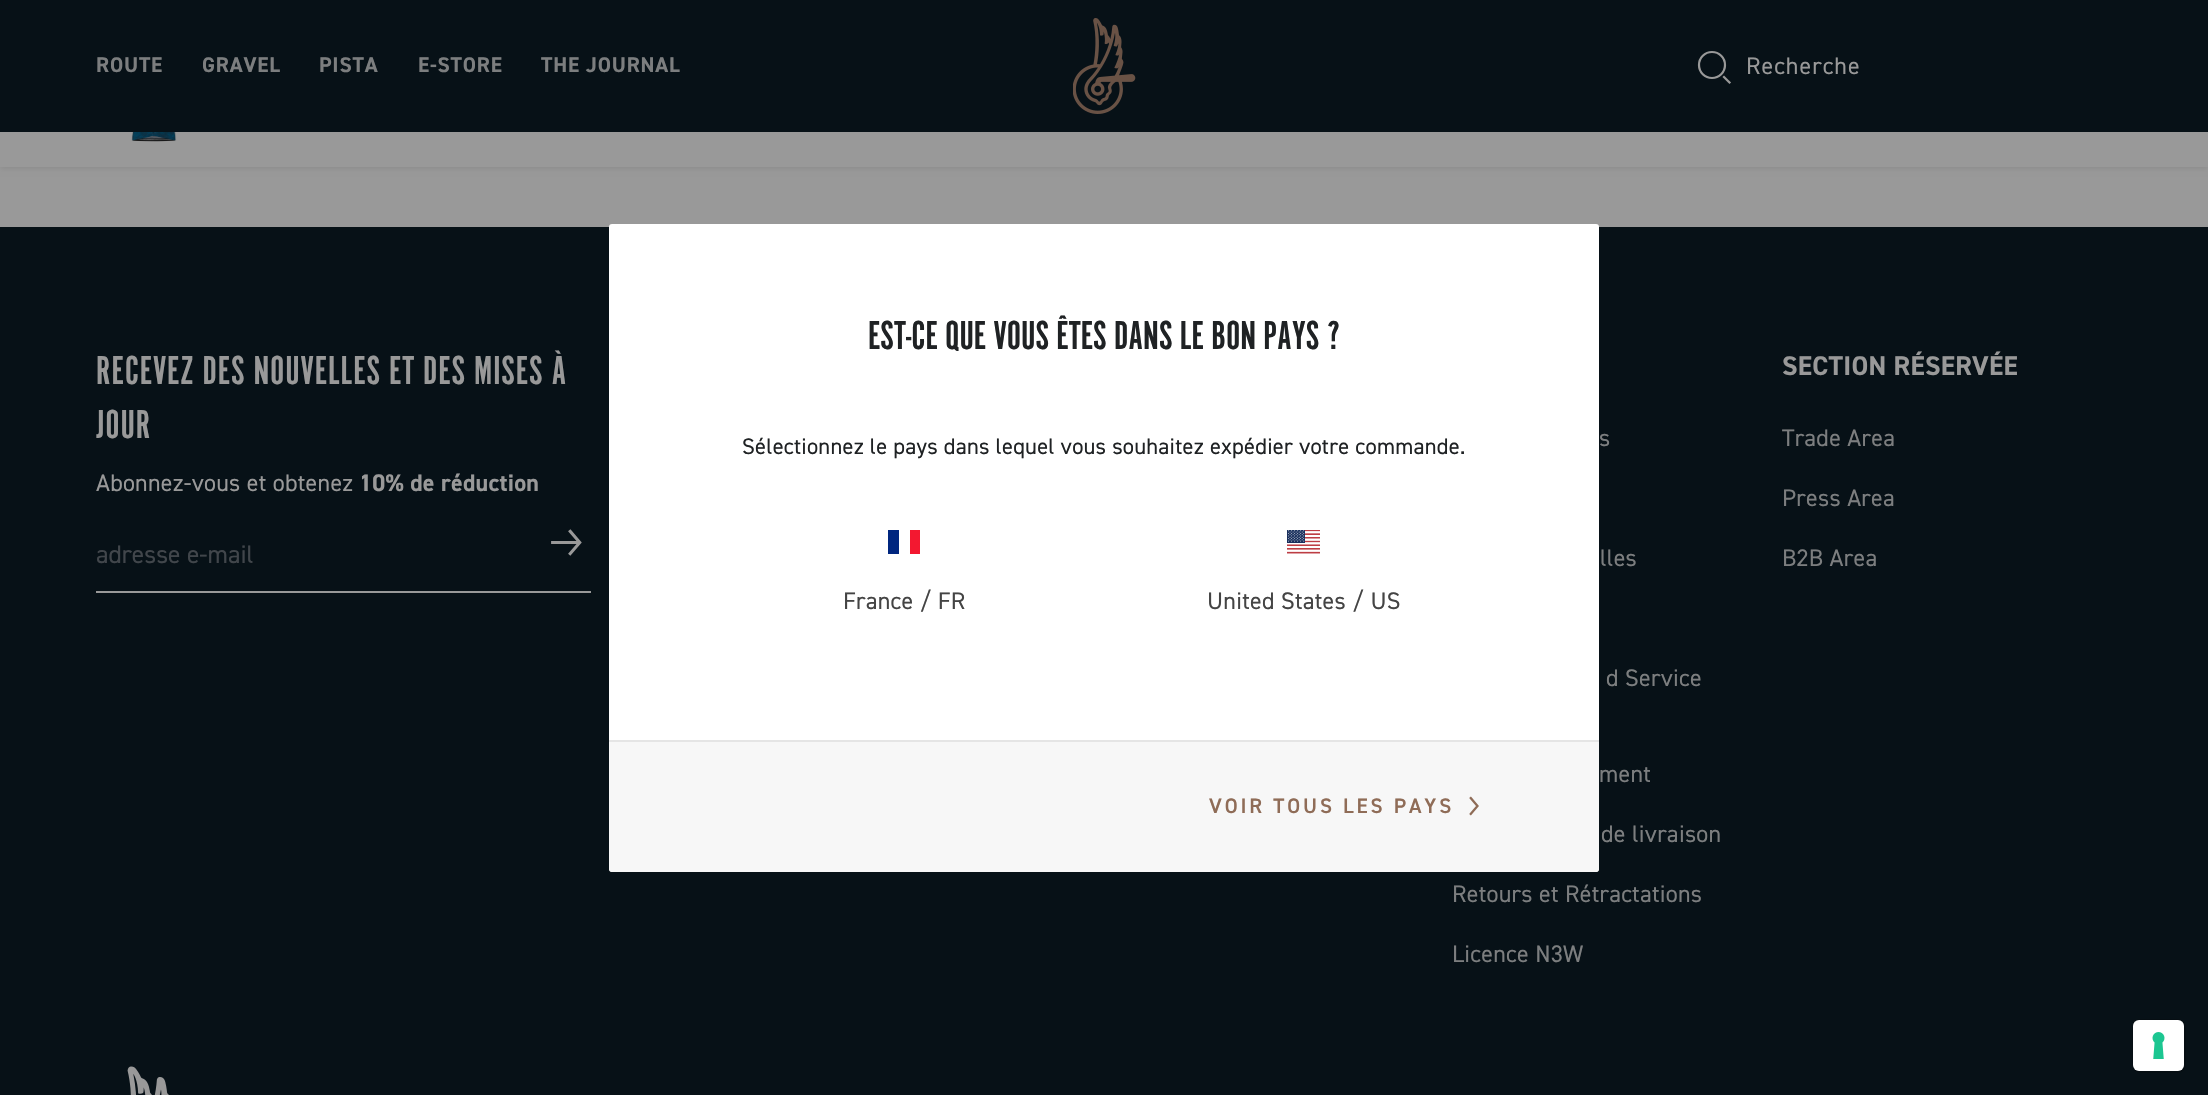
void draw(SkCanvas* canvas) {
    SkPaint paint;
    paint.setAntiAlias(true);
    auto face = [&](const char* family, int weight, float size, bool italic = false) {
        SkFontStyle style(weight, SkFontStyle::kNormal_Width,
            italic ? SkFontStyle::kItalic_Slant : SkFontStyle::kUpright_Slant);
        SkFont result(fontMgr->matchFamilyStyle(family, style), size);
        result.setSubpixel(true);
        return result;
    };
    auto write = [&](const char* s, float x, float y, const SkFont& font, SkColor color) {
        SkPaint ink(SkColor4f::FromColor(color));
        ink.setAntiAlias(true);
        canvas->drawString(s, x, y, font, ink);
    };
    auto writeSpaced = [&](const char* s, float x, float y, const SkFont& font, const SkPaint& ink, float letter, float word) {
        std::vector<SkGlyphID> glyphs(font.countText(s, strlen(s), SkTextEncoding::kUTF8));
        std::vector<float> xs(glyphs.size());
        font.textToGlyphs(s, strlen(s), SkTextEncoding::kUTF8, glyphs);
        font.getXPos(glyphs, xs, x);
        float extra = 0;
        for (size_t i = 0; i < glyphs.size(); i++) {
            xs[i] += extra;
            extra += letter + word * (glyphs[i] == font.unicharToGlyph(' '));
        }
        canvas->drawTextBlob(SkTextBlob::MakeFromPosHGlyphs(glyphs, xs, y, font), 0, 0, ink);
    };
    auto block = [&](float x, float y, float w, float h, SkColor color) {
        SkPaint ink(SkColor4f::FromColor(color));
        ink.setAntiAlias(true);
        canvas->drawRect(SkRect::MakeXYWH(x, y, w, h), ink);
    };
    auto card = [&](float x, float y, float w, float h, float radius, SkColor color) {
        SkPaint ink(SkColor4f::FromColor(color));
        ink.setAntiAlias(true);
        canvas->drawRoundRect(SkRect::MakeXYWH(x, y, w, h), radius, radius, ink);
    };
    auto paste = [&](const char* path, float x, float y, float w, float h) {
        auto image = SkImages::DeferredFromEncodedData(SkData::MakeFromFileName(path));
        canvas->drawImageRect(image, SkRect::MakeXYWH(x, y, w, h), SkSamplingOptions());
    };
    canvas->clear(SkColorSetRGB(153, 153, 153));
    paint.setColor(SkColorSetARGB(26, 0, 0, 0));
    paint.setMaskFilter(SkMaskFilter::MakeBlur(kNormal_SkBlurStyle, 3));
    canvas->drawRect(SkRect::MakeXYWH(0, 36, 2208, 132), paint);
    paint.setMaskFilter(nullptr);
    block(0, 0, 2208, 132, SkColorSetRGB(7, 17, 23));
    auto kFont1 = face("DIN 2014", 700, 21.25f);
    paint.setColor(SkColorSetRGB(124, 126, 127));
    writeSpaced("ROUTE", 96, 72, kFont1, paint, 0.8f, 0);
    writeSpaced("GRAVEL", 202, 72, kFont1, paint, 0.8f, 0);
    writeSpaced("PISTA", 319, 72, kFont1, paint, 0.8f, 0);
    writeSpaced("E-STORE", 418, 72, kFont1, paint, 0.8f, 0);
    writeSpaced("THE JOURNAL", 541, 72, kFont1, paint, 0.8f, 0);
    paste("pic1.png", 1073, 18, 63, 96);
    paint.setStyle(SkPaint::kStroke_Style);
    paint.setStrokeWidth(2.2f);
    paint.setColor(SkColorSetRGB(153, 153, 153));
    canvas->drawCircle(1712, 65, 13, paint);
    paint.setStrokeCap(SkPaint::kSquare_Cap);
    canvas->drawPath(SkPathBuilder().moveTo(1729.5f, 82.5f).lineTo(1724, 77).detach(), paint);
    auto kFont2 = face("DIN 2014", 400, 24);
    paint.setStyle(SkPaint::kFill_Style);
    writeSpaced("Recherche", 1746, 74, kFont2, paint, 1, 0);
    block(0, 132, 2208, 35, SkColorSetRGB(153, 153, 153));
    paste("pic2.png", 122, 132, 64, 10);
    block(0, 227, 2208, 868, SkColorSetRGB(7, 17, 23));
    card(609, 224, 990, 648, 3, SK_ColorWHITE);
    auto kFont3 = face("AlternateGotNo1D", 400, 42);
    write("EST-CE QUE VOUS ÊTES DANS LE BON PAYS ?", 868, 349, kFont3, SkColorSetRGB(31, 34, 36));
    auto kFont4 = face("DIN 2014", 400, 22.5f);
    paint.setColor(SkColorSetRGB(31, 34, 36));
    writeSpaced("Sélectionnez le pays dans lequel vous souhaitez expédier votre commande.", 742, 454, kFont4, paint, 0.22f, 0);
    block(888, 530, 11, 24, SkColorSetRGB(0, 38, 127));
    block(910, 530, 10, 24, SkColorSetRGB(243, 24, 48));
    paint.setColor(SkColorSetRGB(68, 68, 68));
    writeSpaced("France / FR", 843, 609, kFont2, paint, 0.25f, 0);
    paste("pic3.png", 1287, 530, 33, 24);
    writeSpaced("United States / US", 1207, 609, kFont2, paint, 0.25f, 0);
    paint.setColor(SkColorSetRGB(247, 247, 247));
    canvas->drawPath(SkPathBuilder().moveTo(609, 740).lineTo(1599, 740).lineTo(1599, 869).cubicTo(1599, 870.5f, 1597.5f, 872, 1596, 872).lineTo(612, 872).cubicTo(610.5f, 872, 609, 870.5f, 609, 869).close().detach(), paint);
    block(609, 740, 990, 2, SkColorSetRGB(229, 229, 229));
    auto kFont5 = face("DIN 2014", 600, 21);
    paint.setColor(SkColorSetRGB(143, 108, 87));
    writeSpaced("VOIR TOUS LES PAYS", 1209, 813, kFont5, paint, 2.9f, 0);
    paste("pic4.png", 1469, 796, 10, 20);
    paint.setColor(SkColorSetRGB(153, 153, 153));
    writeSpaced("RECEVEZ DES NOUVELLES ET DES MISES À", 96, 384, kFont3, paint, 0.85f, 0);
    writeSpaced("JOUR", 96, 438, kFont3, paint, 0.85f, 0);
    writeSpaced("Abonnez-vous et obtenez", 96, 491, kFont2, paint, 0.25f, 0);
    auto kFont6 = face("DIN 2014", 700, 24);
    writeSpaced("10% de réduction", 359, 491, kFont6, paint, 0.25f, 0);
    block(96, 591, 495, 2, SkColorSetRGB(153, 153, 153));
    auto kFont7 = face("DIN 2014", 400, 25.5f);
    write("adresse e-mail", 96, 563, kFont7, SkColorSetRGB(65, 70, 75));
    paste("pic5.png", 551, 529, 31, 27);
    paint.setColor(SkColorSetRGB(124, 126, 127));
    writeSpaced("s", 1599, 446, kFont2, paint, 0.25f, 0);
    writeSpaced("lles", 1600, 566, kFont2, paint, 0.25f, 0);
    writeSpaced("d Service", 1606, 686, kFont2, paint, 0.25f, 0);
    writeSpaced("ment", 1599, 782, kFont2, paint, 0.25f, 0);
    writeSpaced("de livraison", 1601, 842, kFont2, paint, 0.25f, 0);
    writeSpaced("Retours et Rétractations", 1452, 902, kFont2, paint, 0.25f, 0);
    writeSpaced("Licence N3W", 1452, 962, kFont2, paint, 0.25f, 0);
    auto kFont8 = face("DIN 2014", 700, 27);
    paint.setColor(SkColorSetRGB(153, 153, 153));
    writeSpaced("SECTION RÉSERVÉE", 1782, 375, kFont8, paint, 0.25f, 0);
    paint.setColor(SkColorSetRGB(124, 126, 127));
    writeSpaced("Trade Area", 1782, 446, kFont2, paint, 0.25f, 0);
    writeSpaced("Press Area", 1782, 506, kFont2, paint, 0.25f, 0);
    writeSpaced("B2B Area", 1782, 566, kFont2, paint, 0.25f, 0);
    paste("pic6.png", 127, 1066, 42, 29);
    paint.setStyle(SkPaint::kStroke_Style);
    paint.setStrokeWidth(2);
    paint.setStrokeCap(SkPaint::kButt_Cap);
    paint.setColor(SkColorSetRGB(6, 14, 19));
    canvas->drawRoundRect(SkRect::MakeXYWH(2133, 1020, 52, 52), 7, 7, paint);
    card(2133, 1020, 51, 51, 6, SK_ColorWHITE);
    paste("pic7.png", 2152, 1032, 13, 27);
}
